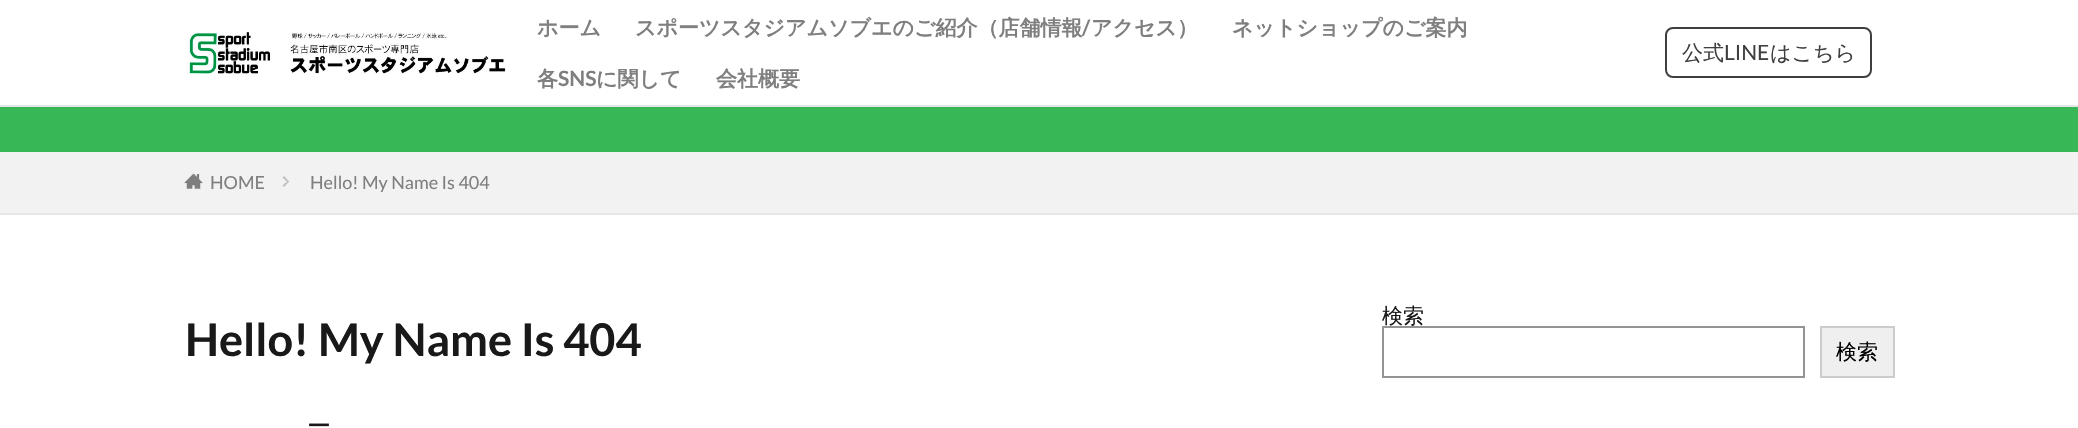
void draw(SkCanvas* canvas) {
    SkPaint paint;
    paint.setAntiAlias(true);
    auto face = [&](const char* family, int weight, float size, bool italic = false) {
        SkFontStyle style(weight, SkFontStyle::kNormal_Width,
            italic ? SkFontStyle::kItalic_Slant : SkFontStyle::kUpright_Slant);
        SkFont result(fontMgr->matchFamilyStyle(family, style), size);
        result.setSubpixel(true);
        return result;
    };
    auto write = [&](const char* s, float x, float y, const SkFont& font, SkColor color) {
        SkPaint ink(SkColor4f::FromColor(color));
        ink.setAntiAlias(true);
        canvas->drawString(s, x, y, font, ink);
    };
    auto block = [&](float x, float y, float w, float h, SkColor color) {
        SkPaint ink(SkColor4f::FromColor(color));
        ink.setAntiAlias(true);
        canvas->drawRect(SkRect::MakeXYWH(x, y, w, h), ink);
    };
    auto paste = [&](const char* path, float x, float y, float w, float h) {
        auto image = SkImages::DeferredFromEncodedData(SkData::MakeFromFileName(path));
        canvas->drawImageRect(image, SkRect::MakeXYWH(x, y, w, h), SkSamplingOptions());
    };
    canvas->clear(SK_ColorWHITE);
    block(0, 105, 2078, 2, SkColorSetRGB(230, 230, 230));
    paste("pic1.png", 189, 31, 317, 44);
    auto kFont1 = face("WenQuanYi Zen Hei", 700, 21);
    write("ホーム", 537, 35, kFont1, SkColorSetRGB(127, 127, 127));
    write("スポーツスタジアムソブエのご紹介（店舗情報", 635, 35, kFont1, SkColorSetRGB(127, 127, 127));
    auto kFont2 = face("Lato", 700, 21);
    write("/", 1082, 35, kFont2, SkColorSetRGB(127, 127, 127));
    write("アクセス）", 1091, 35, kFont1, SkColorSetRGB(127, 127, 127));
    write("ネットショップのご案内", 1232, 35, kFont1, SkColorSetRGB(127, 127, 127));
    write("各", 537, 86, kFont1, SkColorSetRGB(127, 127, 127));
    write("SNS", 558, 86, kFont2, SkColorSetRGB(127, 127, 127));
    write("に関して", 596, 86, kFont1, SkColorSetRGB(127, 127, 127));
    write("会社概要", 716, 86, kFont1, SkColorSetRGB(127, 127, 127));
    paint.setStyle(SkPaint::kStroke_Style);
    paint.setStrokeWidth(2);
    paint.setColor(SkColorSetRGB(63, 63, 63));
    canvas->drawRoundRect(SkRect::MakeXYWH(1666, 28, 205, 49), 7, 7, paint);
    auto kFont3 = face("WenQuanYi Zen Hei", 500, 21);
    write("公式", 1682, 60, kFont3, SkColorSetRGB(63, 63, 63));
    auto kFont4 = face("Lato", 400, 21);
    write("LINE", 1724, 60, kFont4, SkColorSetRGB(63, 63, 63));
    write("はこちら", 1770, 60, kFont3, SkColorSetRGB(63, 63, 63));
    block(0, 107, 2078, 45, SkColorSetRGB(56, 183, 86));
    block(0, 152, 2078, 61, SkColorSetRGB(242, 242, 242));
    block(0, 213, 2078, 2, SkColorSetRGB(230, 230, 230));
    paste("pic2.png", 184, 173, 19, 16);
    auto kFont5 = face("Lato", 400, 18);
    write("HOME", 210, 189, kFont5, SkColorSetRGB(127, 127, 127));
    paint.setStyle(SkPaint::kFill_Style);
    paint.setColor(SkColorSetRGB(191, 191, 191));
    canvas->drawPath(SkPathBuilder().moveTo(284, 176).lineTo(289, 181.5f).lineTo(288, 182.5f).lineTo(282.5f, 177.5f).close().detach(), paint);
    canvas->drawPath(SkPathBuilder().moveTo(288, 180.5f).lineTo(289, 181.5f).lineTo(284, 187).lineTo(282.5f, 185.5f).close().detach(), paint);
    write("Hello! My Name Is 404", 310, 189, kFont5, SkColorSetRGB(127, 127, 127));
    auto kFont6 = face("Lato", 700, 45);
    write("Hello! My Name Is 404", 185, 356, kFont6, SkColorSetRGB(25, 25, 25));
    auto kFont7 = face("WenQuanYi Zen Hei", 500, 24);
    write("ー", 307, 434, kFont7, SkColorSetRGB(25, 25, 25));
    write("検索", 1382, 323, kFont3, SkColorSetRGB(25, 25, 25));
    paint.setStyle(SkPaint::kStroke_Style);
    paint.setColor(SkColorSetRGB(148, 148, 148));
    canvas->drawRect(SkRect::MakeXYWH(1383, 327, 421, 50), paint);
    paint.setStyle(SkPaint::kFill_Style);
    paint.setColor(SkColorSetRGB(239, 239, 239));
    canvas->drawRect(SkRect::MakeXYWH(1821, 327, 73, 50), paint);
    paint.setStyle(SkPaint::kStroke_Style);
    paint.setColor(SkColorSetRGB(204, 204, 204));
    canvas->drawRect(SkRect::MakeXYWH(1821, 327, 73, 50), paint);
    write("検索", 1836, 359, kFont3, SK_ColorBLACK);
}
